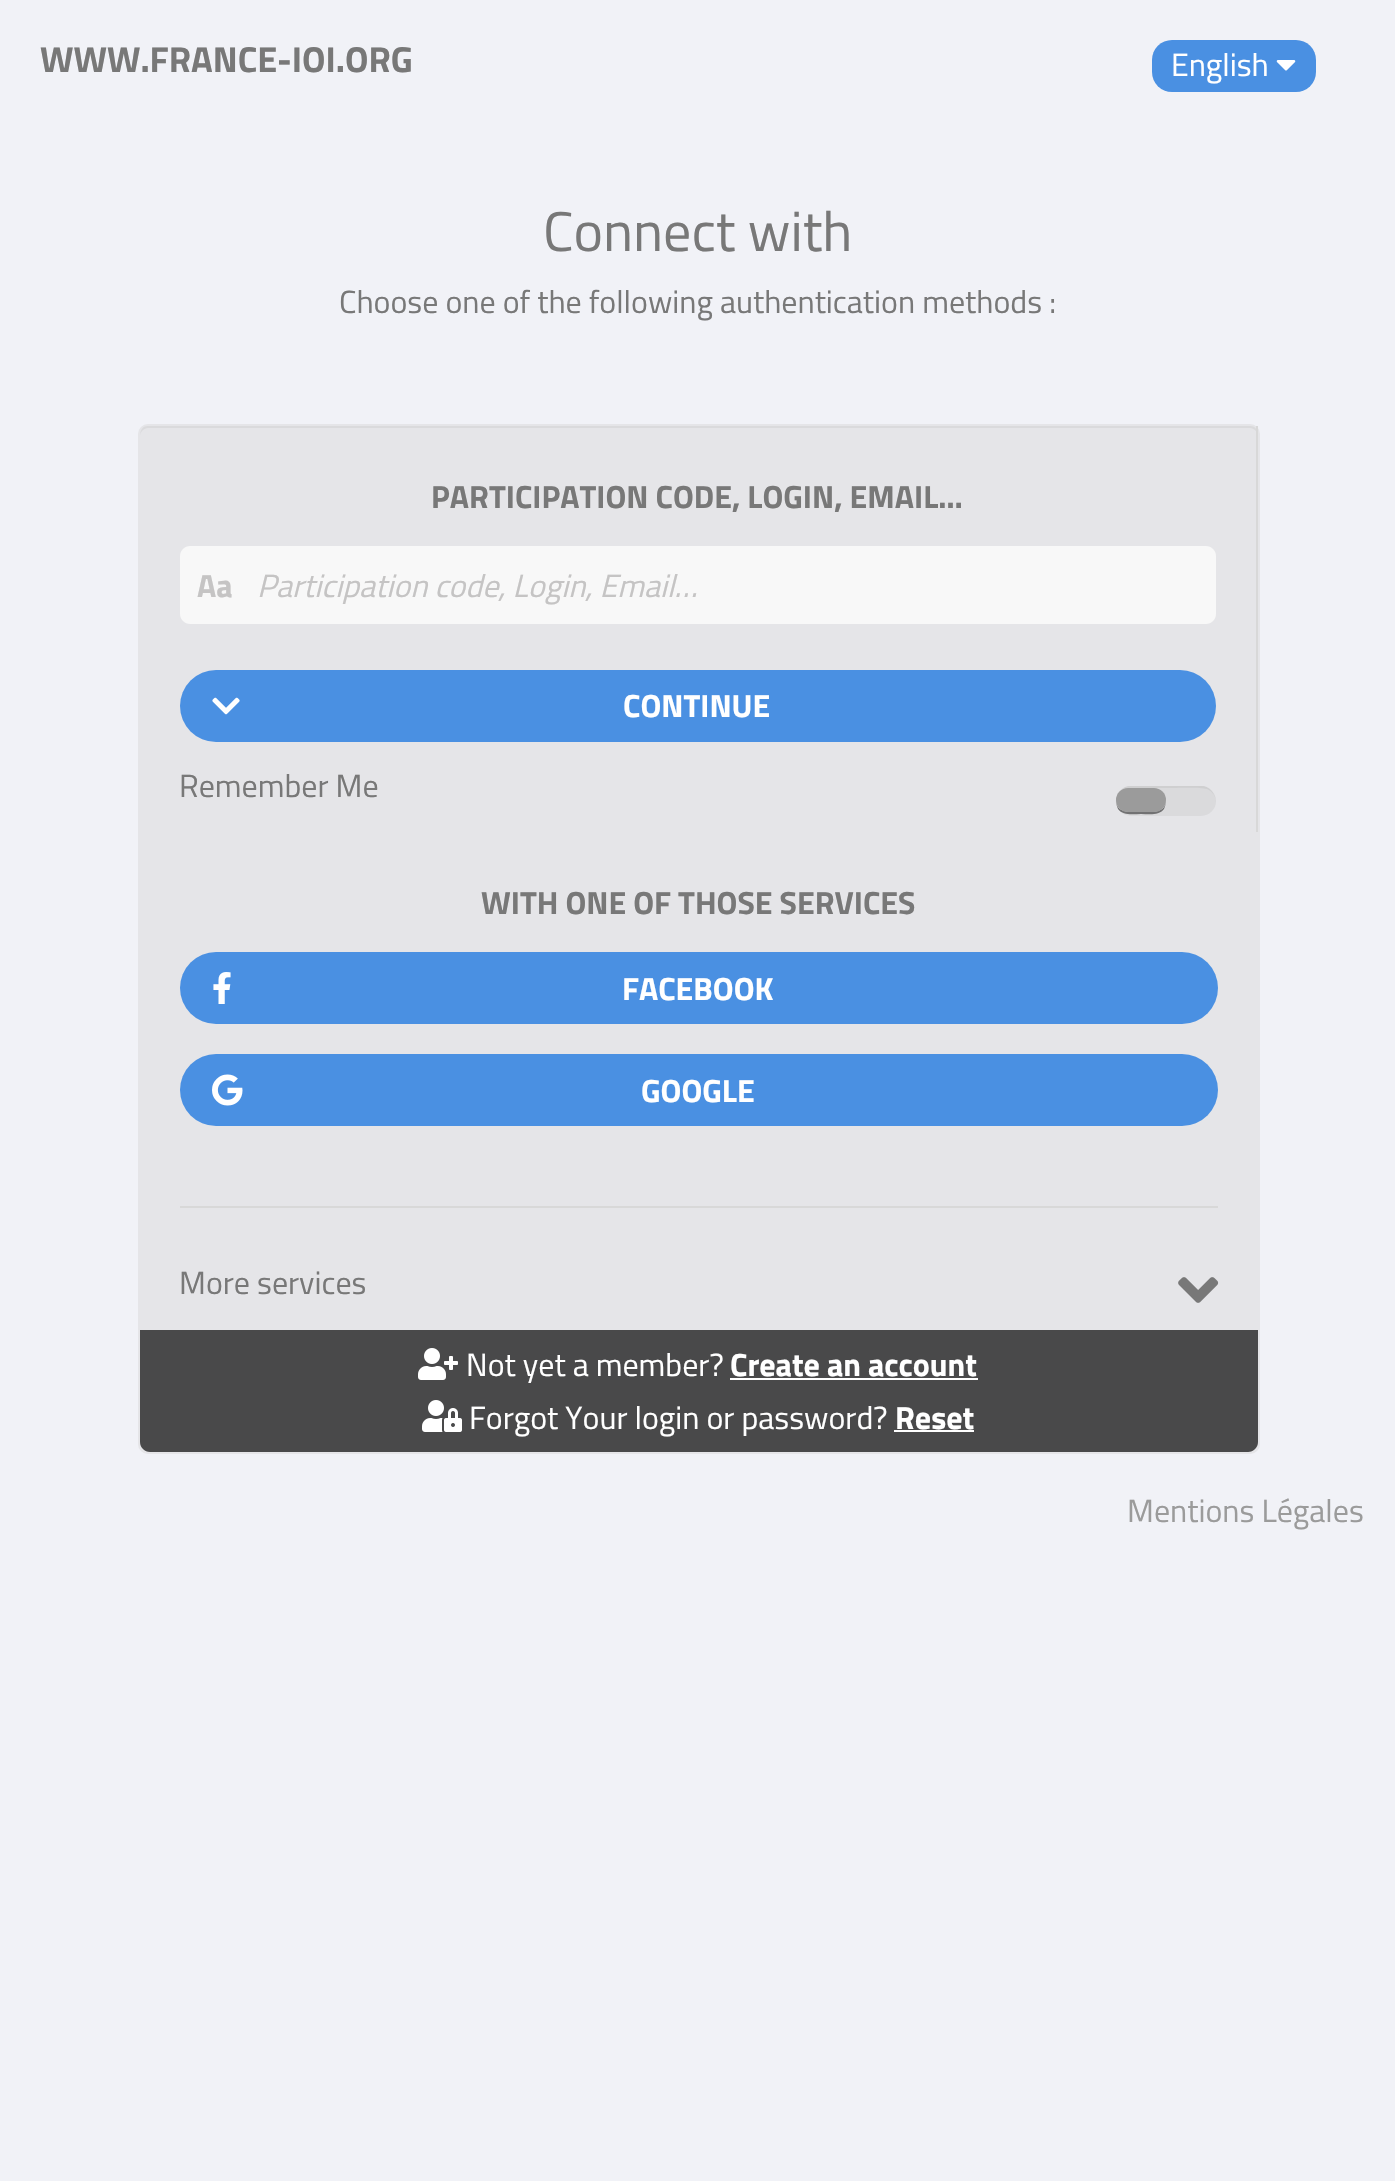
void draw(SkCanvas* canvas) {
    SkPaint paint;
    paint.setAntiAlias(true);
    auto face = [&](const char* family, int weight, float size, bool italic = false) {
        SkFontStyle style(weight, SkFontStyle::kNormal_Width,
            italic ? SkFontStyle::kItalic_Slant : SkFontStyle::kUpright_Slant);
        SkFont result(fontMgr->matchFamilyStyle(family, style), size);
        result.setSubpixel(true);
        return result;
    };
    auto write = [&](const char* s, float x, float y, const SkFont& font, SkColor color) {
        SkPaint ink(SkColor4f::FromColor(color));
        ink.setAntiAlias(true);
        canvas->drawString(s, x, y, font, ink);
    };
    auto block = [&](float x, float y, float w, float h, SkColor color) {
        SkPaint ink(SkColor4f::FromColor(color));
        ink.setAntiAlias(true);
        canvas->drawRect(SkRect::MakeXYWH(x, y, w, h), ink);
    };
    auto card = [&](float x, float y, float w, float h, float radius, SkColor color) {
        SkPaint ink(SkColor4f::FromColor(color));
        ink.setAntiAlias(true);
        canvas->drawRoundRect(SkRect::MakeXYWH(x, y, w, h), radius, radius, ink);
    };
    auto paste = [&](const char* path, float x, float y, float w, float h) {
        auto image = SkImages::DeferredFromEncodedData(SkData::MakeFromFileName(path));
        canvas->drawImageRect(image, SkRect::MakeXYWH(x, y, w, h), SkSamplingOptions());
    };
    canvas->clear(SkColorSetRGB(241, 242, 247));
    auto kFont1 = face("Titillium Web", 700, 36);
    write("WWW.FRANCE-IOI.ORG", 40, 72, kFont1, SkColorSetRGB(120, 120, 120));
    card(1152, 40, 164, 52, 20, SkColorSetRGB(74, 144, 226));
    auto kFont2 = face("Titillium Web", 400, 32);
    write("English", 1171, 76, kFont2, SK_ColorWHITE);
    paste("pic1.png", 1276, 60, 20, 11);
    auto kFont3 = face("Titillium Web", 400, 56);
    write("Connect with", 543, 251, kFont3, SkColorSetRGB(120, 120, 120));
    write("Choose one of the following authentication methods :", 339, 313, kFont2, SkColorSetRGB(120, 120, 120));
    card(138, 424, 1122, 1030, 10, SkColorSetRGB(229, 229, 232));
    paint.setColor(SkColorSetRGB(218, 218, 220));
    canvas->drawPath(SkPathBuilder().moveTo(148, 428).lineTo(1250, 428).cubicTo(1254, 428, 1258, 432, 1258, 436).cubicTo(1258, 431, 1256, 426, 1250, 426).lineTo(148, 426).cubicTo(142, 426, 140, 431, 140, 436).cubicTo(140, 432, 144, 428, 148, 428).close().detach(), paint);
    block(1256, 426, 2, 406, SkColorSetRGB(216, 216, 216));
    auto kFont4 = face("Titillium Web", 700, 32);
    write("PARTICIPATION CODE, LOGIN, EMAIL…", 431, 508, kFont4, SkColorSetRGB(120, 120, 120));
    paint.setColor(SkColorSetRGB(248, 248, 248));
    canvas->drawPath(SkPathBuilder().moveTo(190, 546).lineTo(250, 546).lineTo(250, 624).lineTo(190, 624).cubicTo(184.5f, 624, 180, 619.5f, 180, 614).lineTo(180, 556).cubicTo(180, 550.5f, 184.5f, 546, 190, 546).close().detach(), paint);
    write("Aa", 197, 597, kFont4, SkColorSetRGB(197, 196, 196));
    canvas->drawPath(SkPathBuilder().moveTo(250, 546).lineTo(1206, 546).cubicTo(1211.5f, 546, 1216, 550.5f, 1216, 556).lineTo(1216, 614).cubicTo(1216, 619.5f, 1211.5f, 624, 1206, 624).lineTo(250, 624).close().detach(), paint);
    auto kFont5 = face("Titillium Web", 400, 32, true);
    write("Participation code, Login, Email…", 257, 597, kFont5, SkColorSetRGB(197, 196, 196));
    card(180, 670, 1036, 72, 36, SkColorSetRGB(74, 144, 226));
    paste("pic2.png", 212, 697, 28, 18);
    write("CONTINUE", 623, 717, kFont4, SK_ColorWHITE);
    write("Remember Me", 179, 797, kFont2, SkColorSetRGB(120, 120, 120));
    card(1116, 786, 100, 30, 15, SkColorSetRGB(218, 218, 220));
    paint.setColor(SkColorSetARGB(13, 0, 0, 0));
    canvas->drawPath(SkPathBuilder().moveTo(1131, 788).lineTo(1170, 788).cubicTo(1173, 788, 1202, 787, 1207, 789).cubicTo(1212, 791, 1216, 796, 1216, 802).cubicTo(1216, 795, 1211, 788, 1204, 786).lineTo(1128, 786).cubicTo(1120, 788, 1115, 796, 1116, 804).cubicTo(1116, 796, 1121, 788, 1131, 788).close().detach(), paint);
    paint.setColor(SkColorSetRGB(114, 114, 115));
    canvas->drawPath(SkPathBuilder().moveTo(1116, 801).cubicTo(1116, 804, 1117, 806, 1118, 809).cubicTo(1123, 816, 1133, 814, 1141, 814).cubicTo(1149, 814, 1159, 816, 1164, 809).cubicTo(1165, 806, 1166, 804, 1166, 801).cubicTo(1165, 814, 1150, 812, 1141, 812).cubicTo(1132, 812, 1117, 814, 1116, 801).close().detach(), paint);
    card(1116, 788, 50, 24, 12, SkColorSetRGB(155, 155, 155));
    write("WITH ONE OF THOSE SERVICES", 481, 914, kFont4, SkColorSetRGB(120, 120, 120));
    card(180, 952, 1038, 72, 36, SkColorSetRGB(74, 144, 226));
    paste("pic3.png", 213, 972, 18, 32);
    write("FACEBOOK", 622, 1000, kFont4, SK_ColorWHITE);
    card(180, 1054, 1038, 72, 36, SkColorSetRGB(74, 144, 226));
    paste("pic4.png", 212, 1074, 31, 32);
    write("GOOGLE", 641, 1102, kFont4, SK_ColorWHITE);
    block(180, 1206, 1038, 2, SkColorSetRGB(216, 216, 216));
    write("More services", 179, 1294, kFont2, SkColorSetRGB(120, 120, 120));
    paste("pic5.png", 1178, 1277, 41, 26);
    paint.setColor(SkColorSetRGB(73, 73, 74));
    canvas->drawPath(SkPathBuilder().moveTo(140, 1330).lineTo(1258, 1330).lineTo(1258, 1442).cubicTo(1258, 1447.5f, 1253.5f, 1452, 1248, 1452).lineTo(150, 1452).cubicTo(144.5f, 1452, 140, 1447.5f, 140, 1442).close().detach(), paint);
    paste("pic6.png", 418, 1348, 40, 32);
    write("Not yet a member?", 466, 1376, kFont2, SK_ColorWHITE);
    write("Create an account", 730, 1376, kFont4, SK_ColorWHITE);
    block(730, 1378, 248, 2, SK_ColorWHITE);
    paste("pic7.png", 422, 1400, 40, 32);
    write("Forgot Your login or password?", 469, 1429, kFont2, SK_ColorWHITE);
    write("Reset", 895, 1429, kFont4, SK_ColorWHITE);
    block(894, 1430, 80, 2, SK_ColorWHITE);
    write("Mentions Légales", 1127, 1522, kFont2, SkColorSetRGB(155, 155, 155));
}
